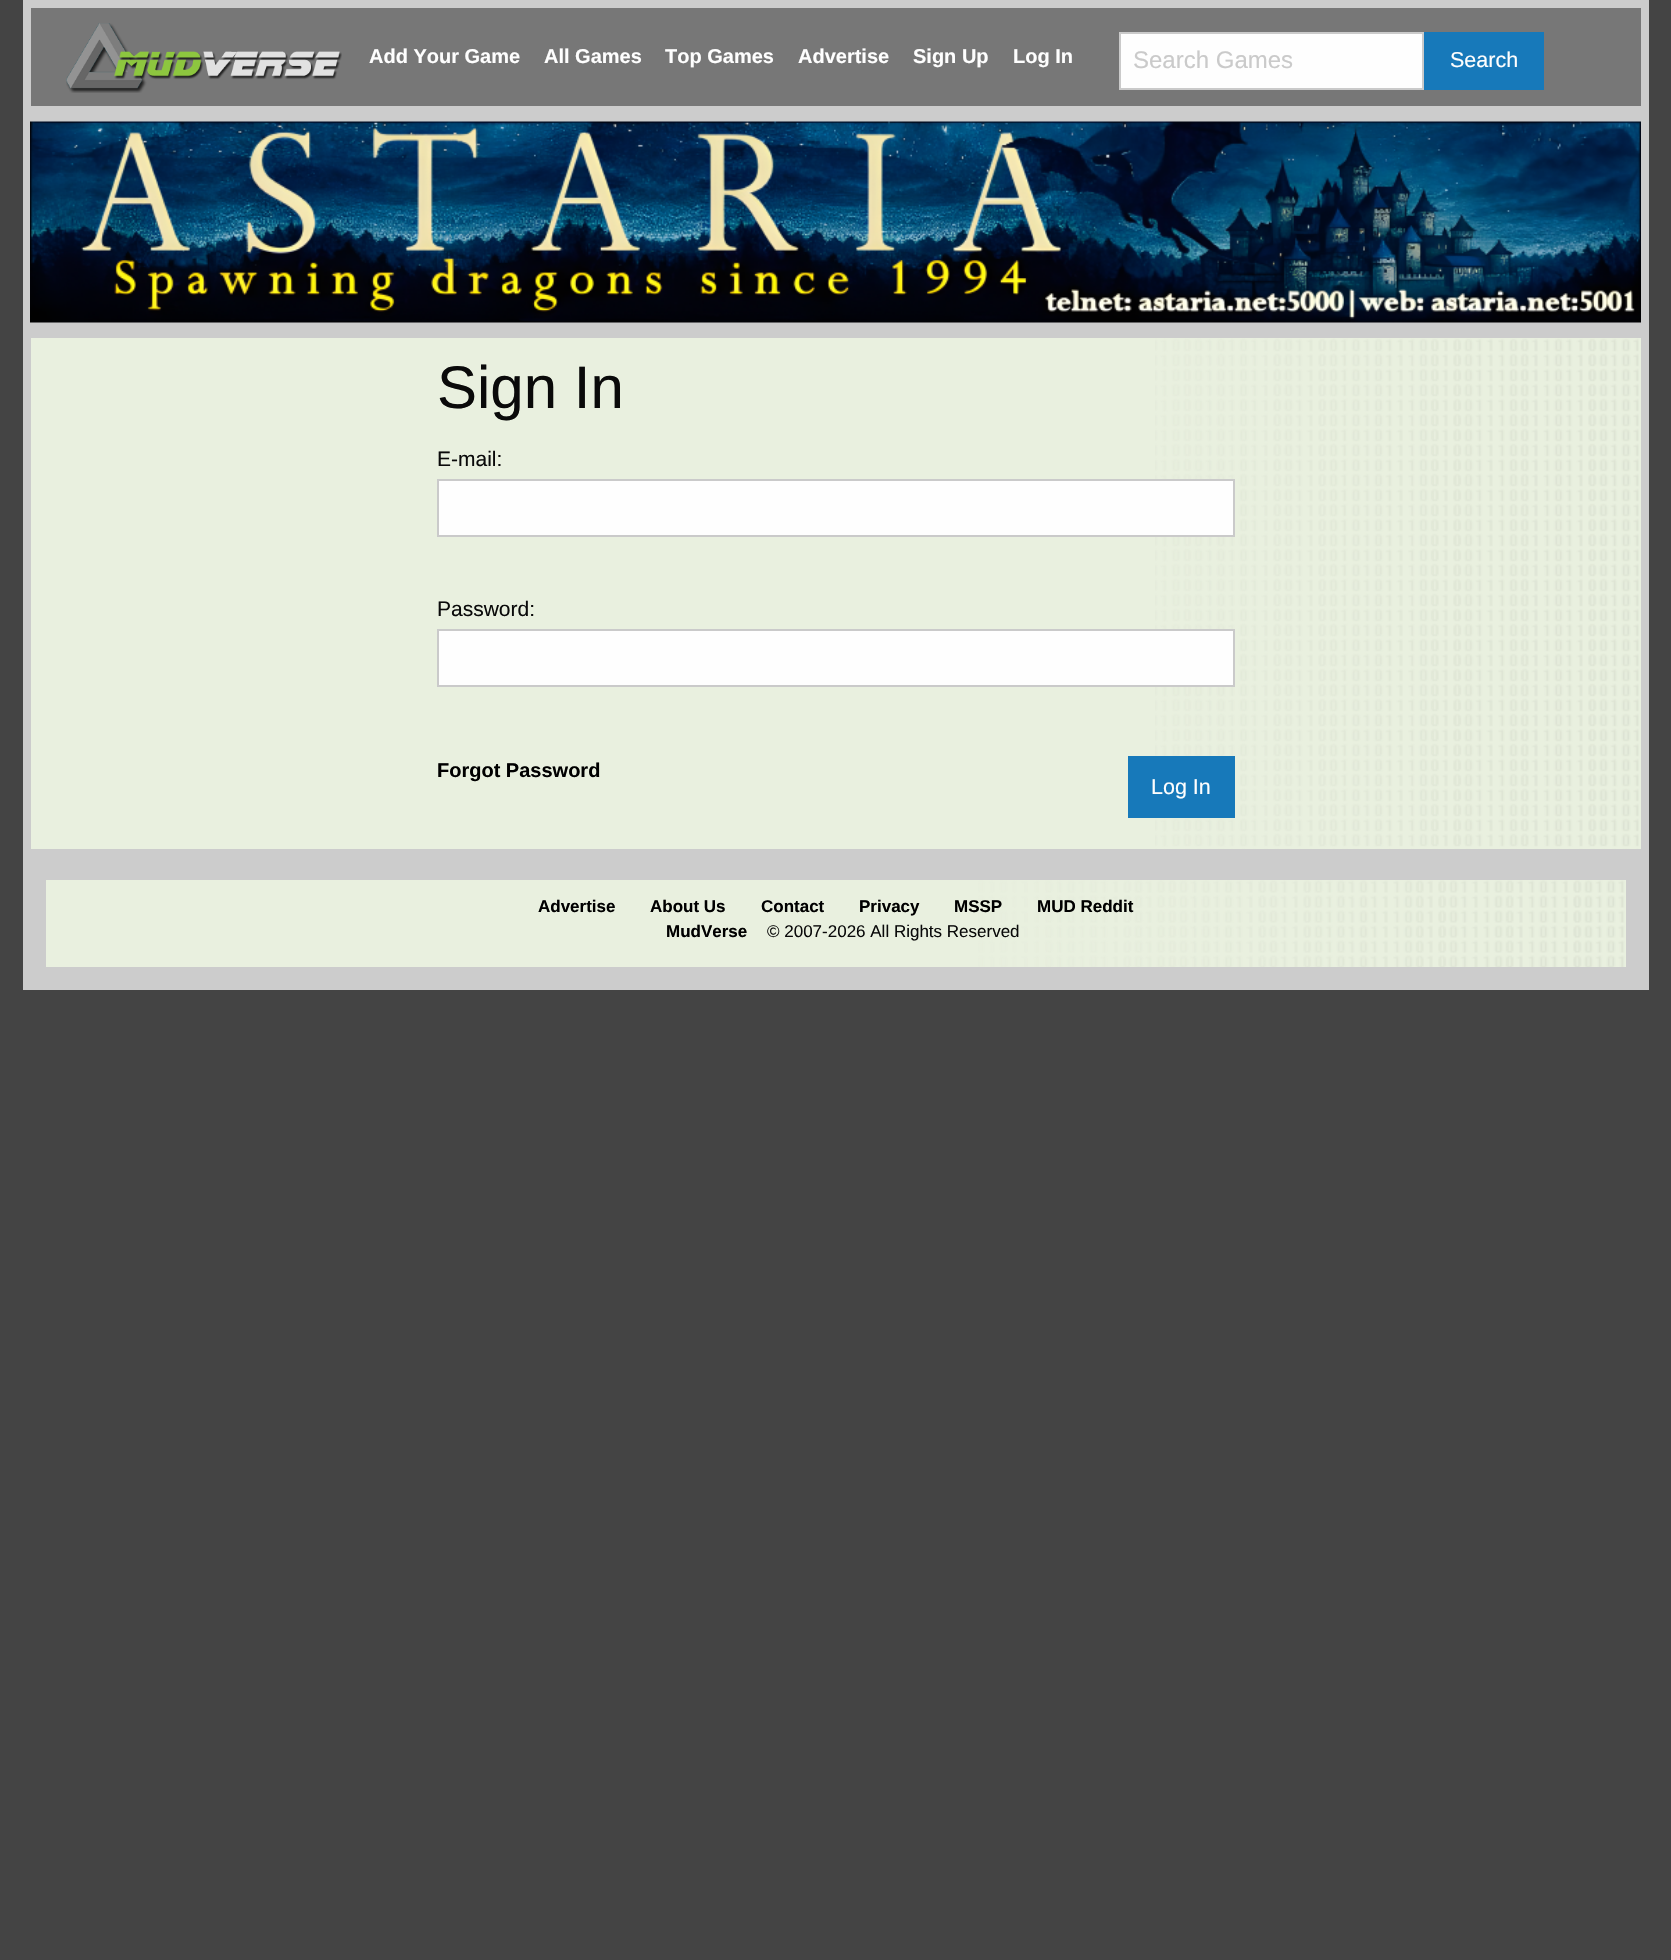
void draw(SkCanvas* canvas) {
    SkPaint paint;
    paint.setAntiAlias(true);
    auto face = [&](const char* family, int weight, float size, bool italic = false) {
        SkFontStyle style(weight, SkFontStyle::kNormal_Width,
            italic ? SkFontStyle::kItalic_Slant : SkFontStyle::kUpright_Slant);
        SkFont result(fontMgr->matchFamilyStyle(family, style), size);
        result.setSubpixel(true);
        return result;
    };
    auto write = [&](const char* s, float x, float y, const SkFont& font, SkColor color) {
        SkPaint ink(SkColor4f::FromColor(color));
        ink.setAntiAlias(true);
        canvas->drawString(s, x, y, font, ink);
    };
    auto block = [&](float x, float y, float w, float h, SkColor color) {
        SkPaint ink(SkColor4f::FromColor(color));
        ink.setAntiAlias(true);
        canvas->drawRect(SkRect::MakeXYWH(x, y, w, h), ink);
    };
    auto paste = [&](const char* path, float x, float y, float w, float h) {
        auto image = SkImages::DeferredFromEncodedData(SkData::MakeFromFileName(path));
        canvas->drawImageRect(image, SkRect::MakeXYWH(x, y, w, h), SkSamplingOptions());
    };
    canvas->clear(SkColorSetRGB(68, 68, 68));
    paint.setColor(SkColorSetRGB(119, 119, 119));
    canvas->drawRect(SkRect::MakeXYWH(27, 4, 1618, 106), paint);
    paint.setStyle(SkPaint::kStroke_Style);
    paint.setStrokeWidth(8);
    paint.setColor(SkColorSetRGB(204, 204, 204));
    canvas->drawRect(SkRect::MakeXYWH(27, 4, 1618, 106), paint);
    paste("pic1.png", 66, 23, 276, 70);
    auto kFont1 = face("Liberation Sans", 700, 20);
    write("Add Your Game", 369, 63, kFont1, SkColorSetRGB(254, 254, 254));
    write("All Games", 544, 63, kFont1, SkColorSetRGB(254, 254, 254));
    write("Top Games", 665, 63, kFont1, SkColorSetRGB(254, 254, 254));
    write("Advertise", 798, 63, kFont1, SkColorSetRGB(254, 254, 254));
    write("Sign Up", 913, 63, kFont1, SkColorSetRGB(254, 254, 254));
    write("Log In", 1013, 63, kFont1, SkColorSetRGB(254, 254, 254));
    paint.setStyle(SkPaint::kFill_Style);
    paint.setColor(SkColorSetRGB(254, 254, 254));
    canvas->drawRect(SkRect::MakeXYWH(1120, 33, 303, 56), paint);
    paint.setStyle(SkPaint::kStroke_Style);
    paint.setStrokeWidth(2);
    paint.setColor(SkColorSetRGB(202, 202, 202));
    canvas->drawRect(SkRect::MakeXYWH(1120, 33, 303, 56), paint);
    auto kFont2 = face("Liberation Sans", 400, 24);
    write("Search Games", 1133, 68, kFont2, SkColorSetRGB(202, 202, 202));
    block(1424, 32, 120, 58, SkColorSetRGB(23, 121, 186));
    auto kFont3 = face("Liberation Sans", 400, 21.5f);
    write("Search", 1450, 67, kFont3, SkColorSetRGB(254, 254, 254));
    block(23, 114, 1626, 216, SkColorSetRGB(204, 204, 204));
    paste("pic2.png", 30, 121, 1611, 202);
    block(31, 338, 1610, 511, SkColorSetRGB(233, 240, 223));
    paste("pic3.png", 1155, 338, 484, 511);
    paint.setStrokeWidth(8);
    paint.setColor(SkColorSetRGB(204, 204, 204));
    canvas->drawRect(SkRect::MakeXYWH(27, 334, 1618, 519), paint);
    auto kFont4 = face("Liberation Sans", 400, 60);
    write("Sign In", 437, 408, kFont4, SkColorSetRGB(10, 10, 10));
    auto kFont5 = face("Liberation Sans", 400, 21);
    write("E-mail:", 437, 466, kFont5, SkColorSetRGB(10, 10, 10));
    paint.setStyle(SkPaint::kFill_Style);
    paint.setColor(SkColorSetRGB(254, 254, 254));
    canvas->drawRect(SkRect::MakeXYWH(438, 480, 796, 56), paint);
    paint.setStyle(SkPaint::kStroke_Style);
    paint.setStrokeWidth(2);
    paint.setColor(SkColorSetRGB(202, 202, 202));
    canvas->drawRect(SkRect::MakeXYWH(438, 480, 796, 56), paint);
    write("Password:", 437, 616, kFont5, SkColorSetRGB(10, 10, 10));
    paint.setStyle(SkPaint::kFill_Style);
    paint.setColor(SkColorSetRGB(254, 254, 254));
    canvas->drawRect(SkRect::MakeXYWH(438, 630, 796, 56), paint);
    paint.setStyle(SkPaint::kStroke_Style);
    paint.setColor(SkColorSetRGB(202, 202, 202));
    canvas->drawRect(SkRect::MakeXYWH(438, 630, 796, 56), paint);
    write("Forgot Password", 437, 777, kFont1, SK_ColorBLACK);
    block(1128, 756, 107, 62, SkColorSetRGB(23, 121, 186));
    write("Log In", 1151, 794, kFont3, SkColorSetRGB(254, 254, 254));
    block(46, 880, 1580, 87, SkColorSetRGB(233, 240, 223));
    paste("pic4.png", 978, 880, 647, 87);
    paint.setStrokeWidth(23);
    paint.setColor(SkColorSetRGB(204, 204, 204));
    canvas->drawRect(SkRect::MakeXYWH(34.5f, 868.5f, 1603, 110), paint);
    auto kFont6 = face("Liberation Sans", 700, 17);
    write("Advertise", 538, 912, kFont6, SK_ColorBLACK);
    write("About Us", 650, 912, kFont6, SK_ColorBLACK);
    write("Contact", 761, 912, kFont6, SK_ColorBLACK);
    write("Privacy", 859, 912, kFont6, SK_ColorBLACK);
    write("MSSP", 954, 912, kFont6, SK_ColorBLACK);
    write("MUD Reddit", 1037, 912, kFont6, SK_ColorBLACK);
    write("MudVerse", 666, 937, kFont6, SK_ColorBLACK);
    auto kFont7 = face("Liberation Sans", 400, 17);
    write("© 2007-2026 All Rights Reserved", 767, 937, kFont7, SkColorSetRGB(10, 10, 10));
}
